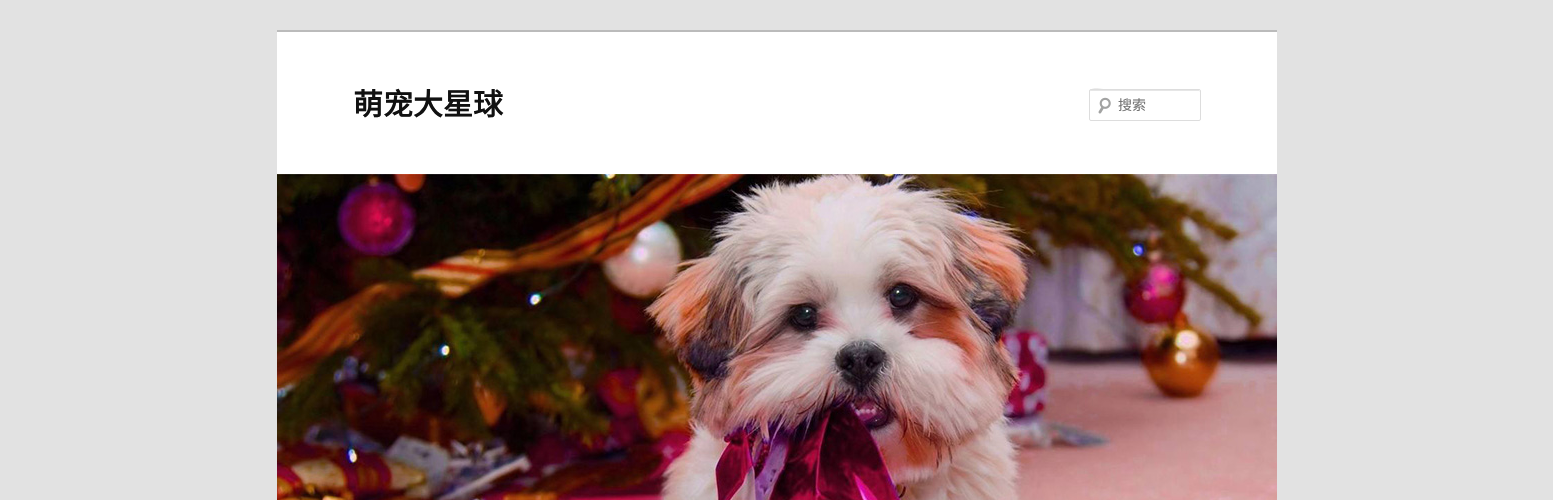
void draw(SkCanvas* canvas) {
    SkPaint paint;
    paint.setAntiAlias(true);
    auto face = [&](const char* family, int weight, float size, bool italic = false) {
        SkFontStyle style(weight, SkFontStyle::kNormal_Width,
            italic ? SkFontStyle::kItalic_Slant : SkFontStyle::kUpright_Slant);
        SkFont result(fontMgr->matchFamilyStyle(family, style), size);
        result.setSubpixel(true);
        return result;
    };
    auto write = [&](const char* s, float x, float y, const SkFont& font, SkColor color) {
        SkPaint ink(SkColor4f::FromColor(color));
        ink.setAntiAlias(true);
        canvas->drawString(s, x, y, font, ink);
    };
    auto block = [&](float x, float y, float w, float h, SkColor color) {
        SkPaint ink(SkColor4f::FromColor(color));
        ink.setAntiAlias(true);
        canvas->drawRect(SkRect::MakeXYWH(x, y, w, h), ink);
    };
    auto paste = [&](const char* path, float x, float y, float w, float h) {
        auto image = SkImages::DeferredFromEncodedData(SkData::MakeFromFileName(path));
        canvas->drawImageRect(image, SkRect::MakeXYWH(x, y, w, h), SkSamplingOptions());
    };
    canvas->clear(SkColorSetRGB(226, 226, 226));
    block(277, 32, 1000, 142, SK_ColorWHITE);
    block(277, 30, 1000, 2, SkColorSetRGB(187, 187, 187));
    auto kFont1 = face("Noto Sans CJK SC", 700, 30);
    write("萌宠大星球", 353, 115, kFont1, SkColorSetRGB(17, 17, 17));
    paste("pic1.png", 1098, 97, 13, 17);
    paint.setColor(SkColorSetRGB(230, 230, 230));
    canvas->drawPath(SkPathBuilder().moveTo(1091, 91).lineTo(1200, 91).lineTo(1200, 92).lineTo(1199, 90).lineTo(1109, 90).cubicTo(1105, 90, 1090, 85, 1090, 92).cubicTo(1090, 91, 1090, 91, 1091, 91).close().detach(), paint);
    paint.setStyle(SkPaint::kStroke_Style);
    paint.setStrokeWidth(1);
    paint.setColor(SkColorSetRGB(221, 221, 221));
    canvas->drawRoundRect(SkRect::MakeXYWH(1089.5f, 89.5f, 111, 31), 1.5f, 1.5f, paint);
    auto kFont2 = face("Noto Sans CJK SC", 400, 14);
    write("搜索", 1118, 110, kFont2, SkColorSetRGB(117, 117, 117));
    paste("pic2.png", 277, 174, 1000, 326);
}
